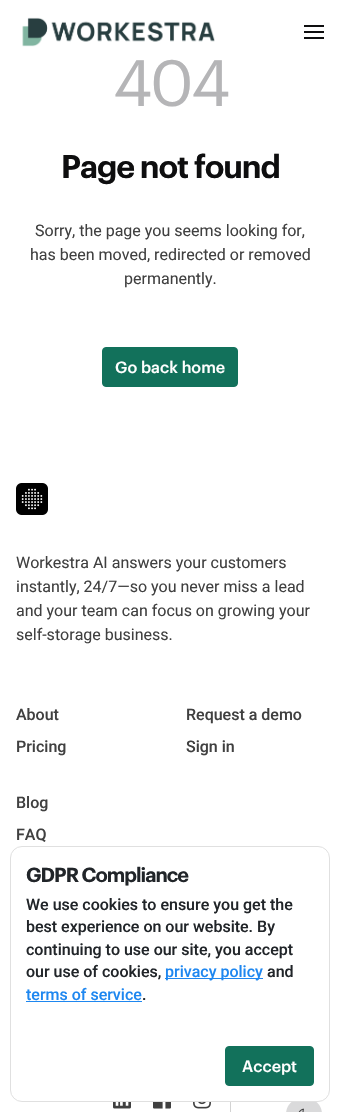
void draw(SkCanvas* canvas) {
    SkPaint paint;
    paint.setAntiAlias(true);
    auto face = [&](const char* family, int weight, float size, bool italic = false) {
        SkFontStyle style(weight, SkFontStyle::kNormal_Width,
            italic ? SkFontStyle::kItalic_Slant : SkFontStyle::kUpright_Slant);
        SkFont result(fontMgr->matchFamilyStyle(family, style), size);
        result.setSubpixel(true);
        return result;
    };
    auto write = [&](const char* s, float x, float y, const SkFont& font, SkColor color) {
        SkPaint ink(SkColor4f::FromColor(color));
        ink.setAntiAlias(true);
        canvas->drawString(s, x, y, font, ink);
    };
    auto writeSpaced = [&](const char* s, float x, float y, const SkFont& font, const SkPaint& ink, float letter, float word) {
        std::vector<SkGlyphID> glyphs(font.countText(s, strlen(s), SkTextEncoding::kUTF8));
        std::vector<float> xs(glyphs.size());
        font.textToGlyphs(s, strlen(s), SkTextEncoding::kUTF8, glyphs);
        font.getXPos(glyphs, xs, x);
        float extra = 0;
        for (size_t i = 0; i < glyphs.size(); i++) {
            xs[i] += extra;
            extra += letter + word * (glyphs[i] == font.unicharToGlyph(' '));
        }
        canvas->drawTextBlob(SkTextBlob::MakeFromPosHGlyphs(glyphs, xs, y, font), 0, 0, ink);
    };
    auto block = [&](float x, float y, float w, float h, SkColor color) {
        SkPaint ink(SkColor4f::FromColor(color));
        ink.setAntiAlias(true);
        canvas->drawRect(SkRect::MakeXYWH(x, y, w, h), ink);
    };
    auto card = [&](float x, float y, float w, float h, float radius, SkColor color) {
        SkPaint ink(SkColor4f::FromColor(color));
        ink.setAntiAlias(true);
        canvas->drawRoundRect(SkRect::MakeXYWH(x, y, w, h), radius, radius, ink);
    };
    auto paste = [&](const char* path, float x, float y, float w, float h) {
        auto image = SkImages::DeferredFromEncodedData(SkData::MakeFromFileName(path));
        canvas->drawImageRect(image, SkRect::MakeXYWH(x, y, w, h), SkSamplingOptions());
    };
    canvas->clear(SK_ColorWHITE);
    paste("pic1.png", 22, 17, 193, 30);
    block(304, 25, 20, 2, SkColorSetRGB(14, 14, 15));
    block(304, 31, 20, 2, SkColorSetRGB(14, 14, 15));
    block(304, 37, 20, 2, SkColorSetRGB(14, 14, 15));
    auto kFont1 = face("Graphik", 400, 64, true);
    paint.setColor(SkColorSetRGB(181, 181, 183));
    writeSpaced("404", 113, 106, kFont1, paint, -2.5f, 0);
    auto kFont2 = face("Graphik", 600, 32);
    paint.setColor(SkColorSetRGB(14, 14, 15));
    writeSpaced("Page not found", 61, 178, kFont2, paint, -1.1f, 0);
    auto kFont3 = face("Roboto", 400, 16);
    write("Sorry, the page you seems looking for,", 35, 236, kFont3, SkColorSetRGB(64, 64, 64));
    write("has been moved, redirected or removed", 30, 260, kFont3, SkColorSetRGB(64, 64, 64));
    write("permanently.", 124, 284, kFont3, SkColorSetRGB(64, 64, 64));
    paint.setColor(SkColorSetRGB(18, 113, 91));
    canvas->drawRoundRect(SkRect::MakeXYWH(102.5f, 347.5f, 135, 39), 3.5f, 3.5f, paint);
    paint.setStyle(SkPaint::kStroke_Style);
    paint.setStrokeWidth(1);
    canvas->drawRoundRect(SkRect::MakeXYWH(102.5f, 347.5f, 135, 39), 3.5f, 3.5f, paint);
    auto kFont4 = face("Graphik", 500, 16);
    write("Go back home", 115, 373, kFont4, SK_ColorWHITE);
    paste("pic2.png", 16, 483, 32, 32);
    write("Workestra AI answers your customers", 16, 568, kFont3, SkColorSetRGB(64, 64, 64));
    write("instantly, 24/7—so you never miss a lead", 16, 592, kFont3, SkColorSetRGB(64, 64, 64));
    write("and your team can focus on growing your", 16, 616, kFont3, SkColorSetRGB(64, 64, 64));
    write("self-storage business.", 16, 640, kFont3, SkColorSetRGB(64, 64, 64));
    auto kFont5 = face("Roboto", 500, 16);
    write("About", 16, 720, kFont5, SkColorSetRGB(64, 64, 64));
    write("Pricing", 16, 752, kFont5, SkColorSetRGB(64, 64, 64));
    write("Request a demo", 186, 720, kFont5, SkColorSetRGB(64, 64, 64));
    write("Sign in", 186, 752, kFont5, SkColorSetRGB(64, 64, 64));
    write("Blog", 16, 808, kFont5, SkColorSetRGB(64, 64, 64));
    write("FAQ", 16, 840, kFont5, SkColorSetRGB(64, 64, 64));
    paste("pic3.png", 113, 1102, 18, 7);
    paste("pic4.png", 153, 1102, 18, 7);
    paste("pic5.png", 193, 1102, 18, 7);
    block(230, 1102, 1, 10, SkColorSetRGB(211, 211, 211));
    card(286, 1098, 36, 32, 18, SkColorSetRGB(218, 218, 219));
    paint.setStyle(SkPaint::kFill_Style);
    paint.setColor(SK_ColorWHITE);
    canvas->drawRoundRect(SkRect::MakeXYWH(10.5f, 846.5f, 319, 255), 11.5f, 11.5f, paint);
    paint.setStyle(SkPaint::kStroke_Style);
    paint.setColor(SkColorSetRGB(224, 224, 224));
    canvas->drawRoundRect(SkRect::MakeXYWH(10.5f, 846.5f, 319, 255), 11.5f, 11.5f, paint);
    auto kFont6 = face("Graphik", 600, 20);
    paint.setStyle(SkPaint::kFill_Style);
    paint.setColor(SkColorSetRGB(33, 37, 41));
    writeSpaced("GDPR Compliance", 26, 882, kFont6, paint, -1, 0);
    write("We use cookies to ensure you get the", 26, 910, kFont5, SkColorSetRGB(33, 37, 41));
    write("best experience on our website. By", 26, 932, kFont5, SkColorSetRGB(33, 37, 41));
    write("continuing to use our site, you accept", 26, 955, kFont5, SkColorSetRGB(33, 37, 41));
    write("our use of cookies,", 26, 977, kFont5, SkColorSetRGB(33, 37, 41));
    block(165, 978, 98, 1, SkColorSetRGB(30, 135, 240));
    write("privacy policy", 165, 977, kFont5, SkColorSetRGB(30, 135, 240));
    write("and", 267, 977, kFont5, SkColorSetRGB(33, 37, 41));
    write("terms of service", 26, 1000, kFont5, SkColorSetRGB(30, 135, 240));
    block(26, 1001, 116, 1, SkColorSetRGB(30, 135, 240));
    write(".", 142, 1000, kFont5, SkColorSetRGB(33, 37, 41));
    paint.setColor(SkColorSetRGB(18, 113, 91));
    canvas->drawRoundRect(SkRect::MakeXYWH(225.5f, 1046.5f, 88, 39), 3.5f, 3.5f, paint);
    paint.setStyle(SkPaint::kStroke_Style);
    canvas->drawRoundRect(SkRect::MakeXYWH(225.5f, 1046.5f, 88, 39), 3.5f, 3.5f, paint);
    write("Accept", 242, 1072, kFont4, SK_ColorWHITE);
    paste("pic6.png", 298, 1108, 6, 4);
}
